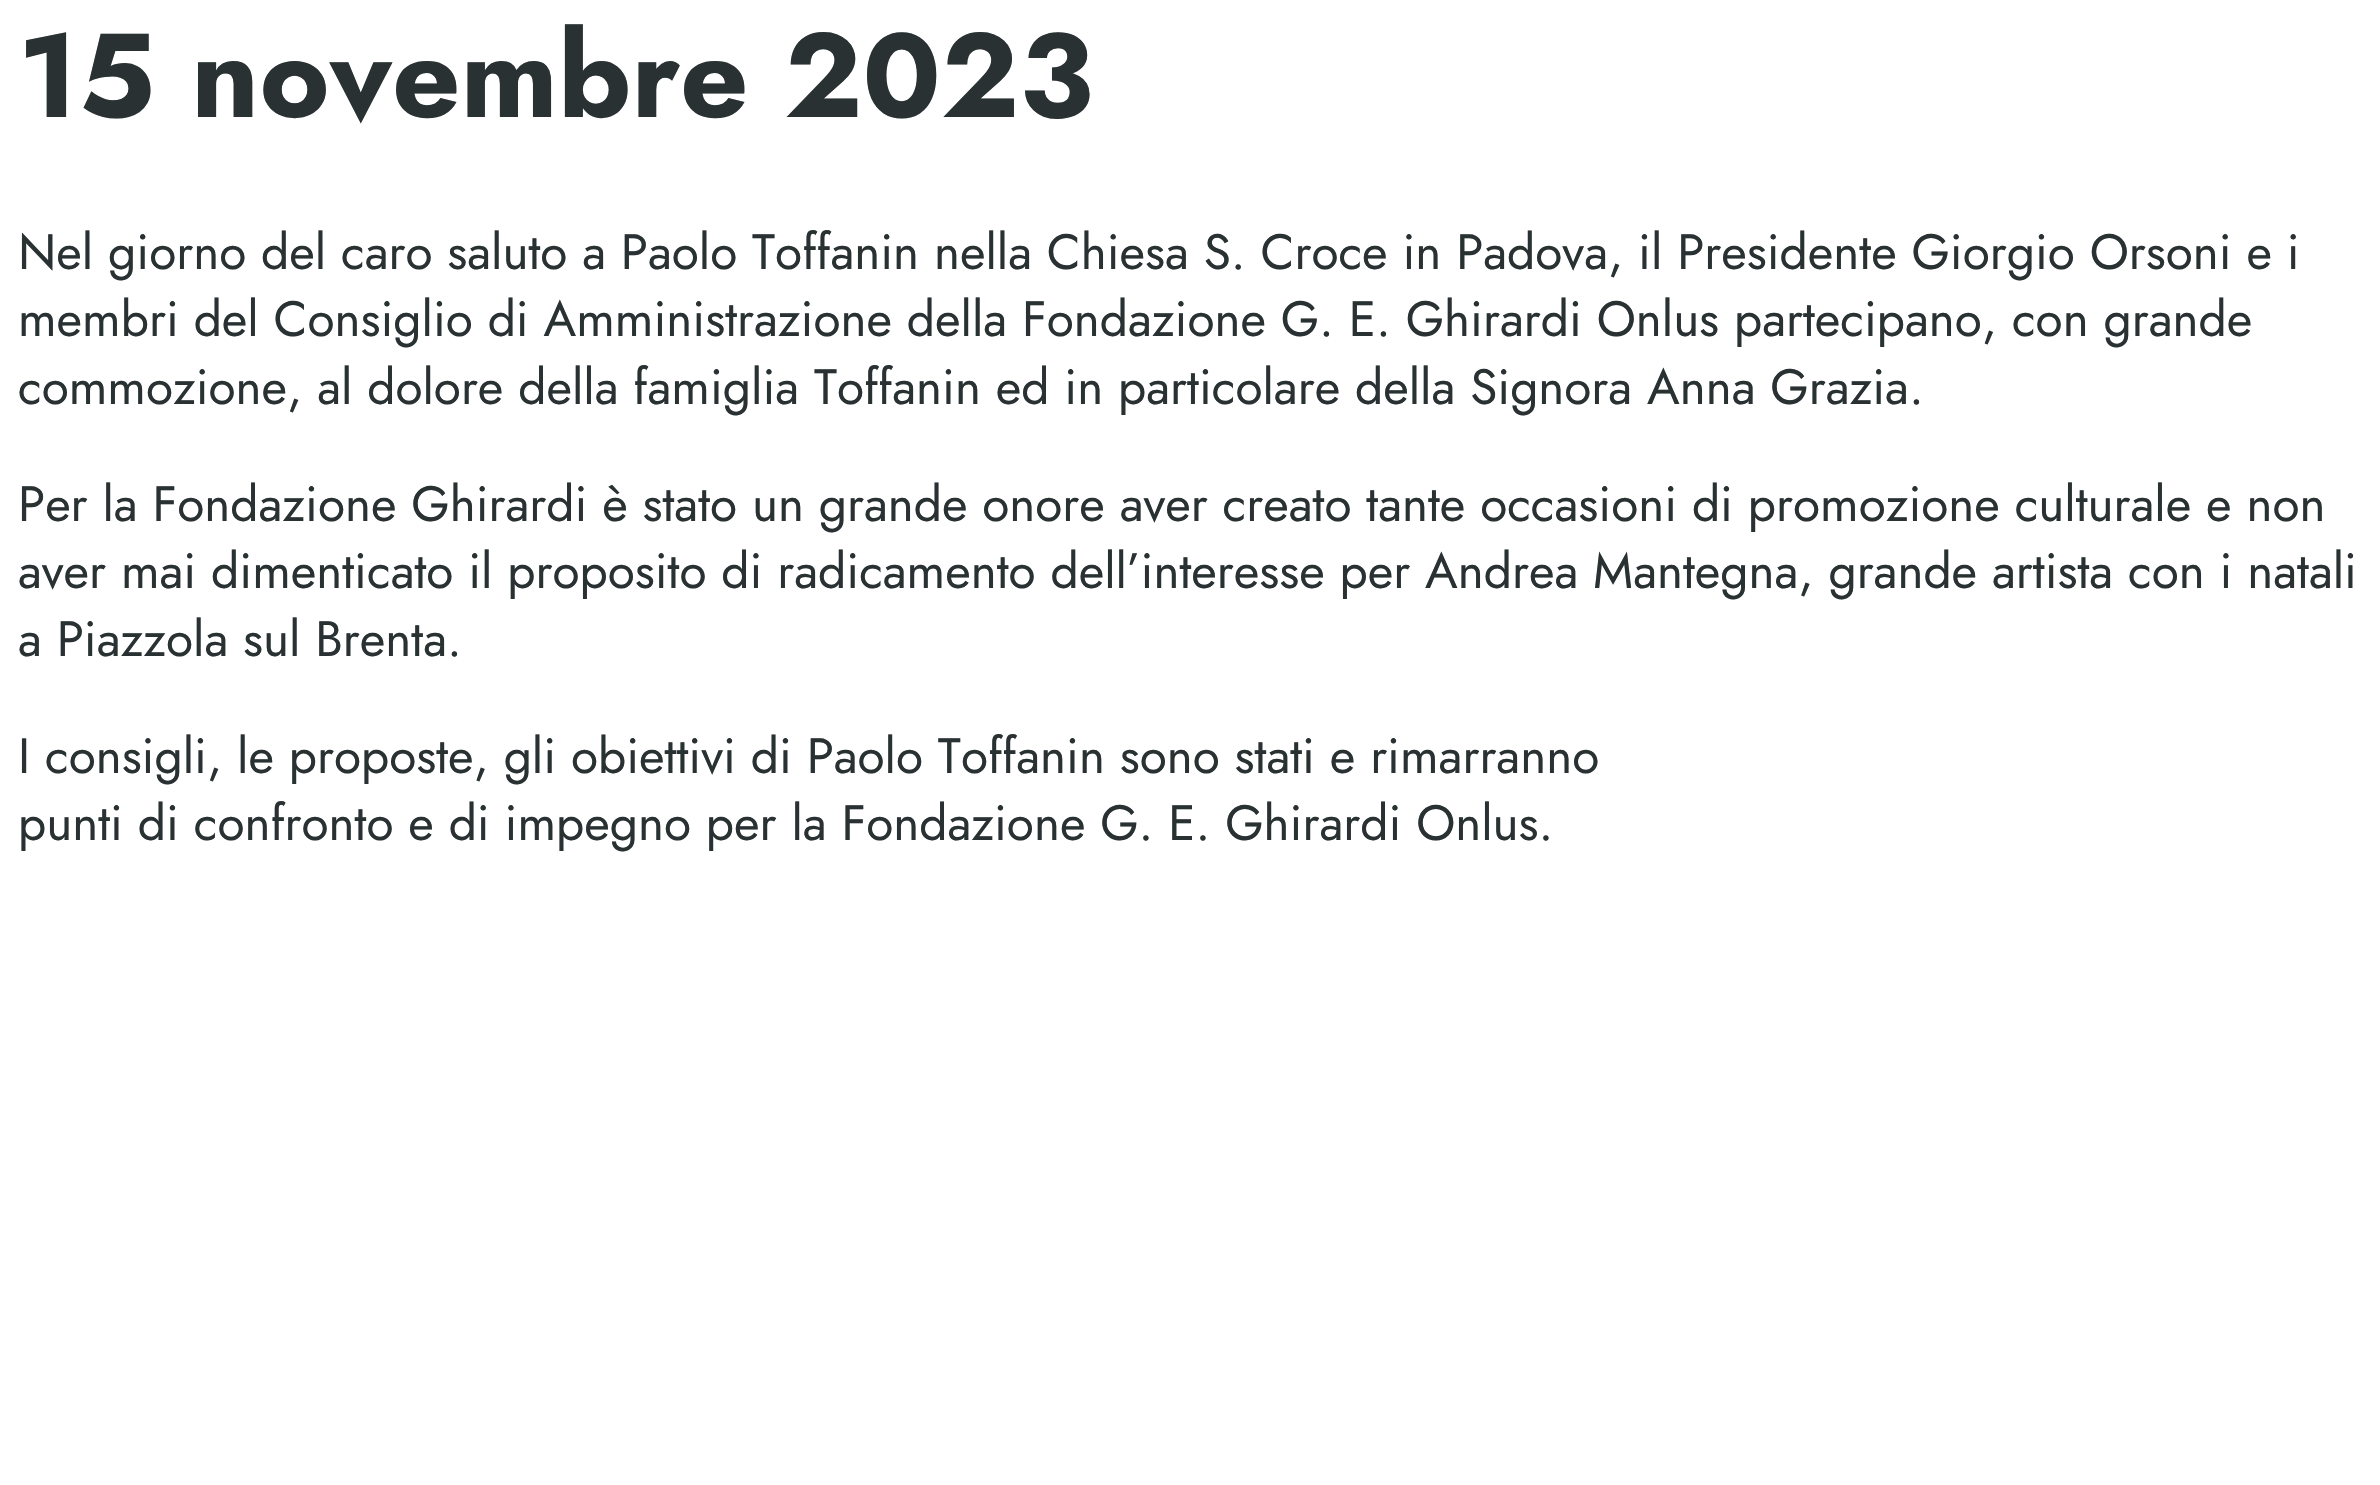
void draw(SkCanvas* canvas) {
    SkPaint paint;
    paint.setAntiAlias(true);
    auto face = [&](const char* family, int weight, float size, bool italic = false) {
        SkFontStyle style(weight, SkFontStyle::kNormal_Width,
            italic ? SkFontStyle::kItalic_Slant : SkFontStyle::kUpright_Slant);
        SkFont result(fontMgr->matchFamilyStyle(family, style), size);
        result.setSubpixel(true);
        return result;
    };
    auto write = [&](const char* s, float x, float y, const SkFont& font, SkColor color) {
        SkPaint ink(SkColor4f::FromColor(color));
        ink.setAntiAlias(true);
        canvas->drawString(s, x, y, font, ink);
    };
    canvas->clear(SK_ColorWHITE);
    auto kFont1 = face("Jost", 700, 119);
    write("15 novembre 2023", 18, 117, kFont1, SkColorSetRGB(41, 49, 51));
    auto kFont2 = face("Jost", 400, 49.5f);
    write("Nel giorno del caro saluto a Paolo Toffanin nella Chiesa S. Croce in Padova, il Presidente Giorgio Orsoni e i", 18, 269, kFont2, SkColorSetRGB(41, 49, 51));
    write("membri del Consiglio di Amministrazione della Fondazione G. E. Ghirardi Onlus partecipano, con grande", 18, 336, kFont2, SkColorSetRGB(41, 49, 51));
    write("commozione, al dolore della famiglia Toffanin ed in particolare della Signora Anna Grazia.", 18, 404, kFont2, SkColorSetRGB(41, 49, 51));
    write("Per la Fondazione Ghirardi è stato un grande onore aver creato tante occasioni di promozione culturale e non", 18, 521, kFont2, SkColorSetRGB(41, 49, 51));
    write("aver mai dimenticato il proposito di radicamento dell’interesse per Andrea Mantegna, grande artista con i natali", 18, 588, kFont2, SkColorSetRGB(41, 49, 51));
    write("a Piazzola sul Brenta.", 18, 656, kFont2, SkColorSetRGB(41, 49, 51));
    write("I consigli, le proposte, gli obiettivi di Paolo Toffanin sono stati e rimarranno", 18, 773, kFont2, SkColorSetRGB(41, 49, 51));
    write("punti di confronto e di impegno per la Fondazione G. E. Ghirardi Onlus.", 18, 840, kFont2, SkColorSetRGB(41, 49, 51));
}
